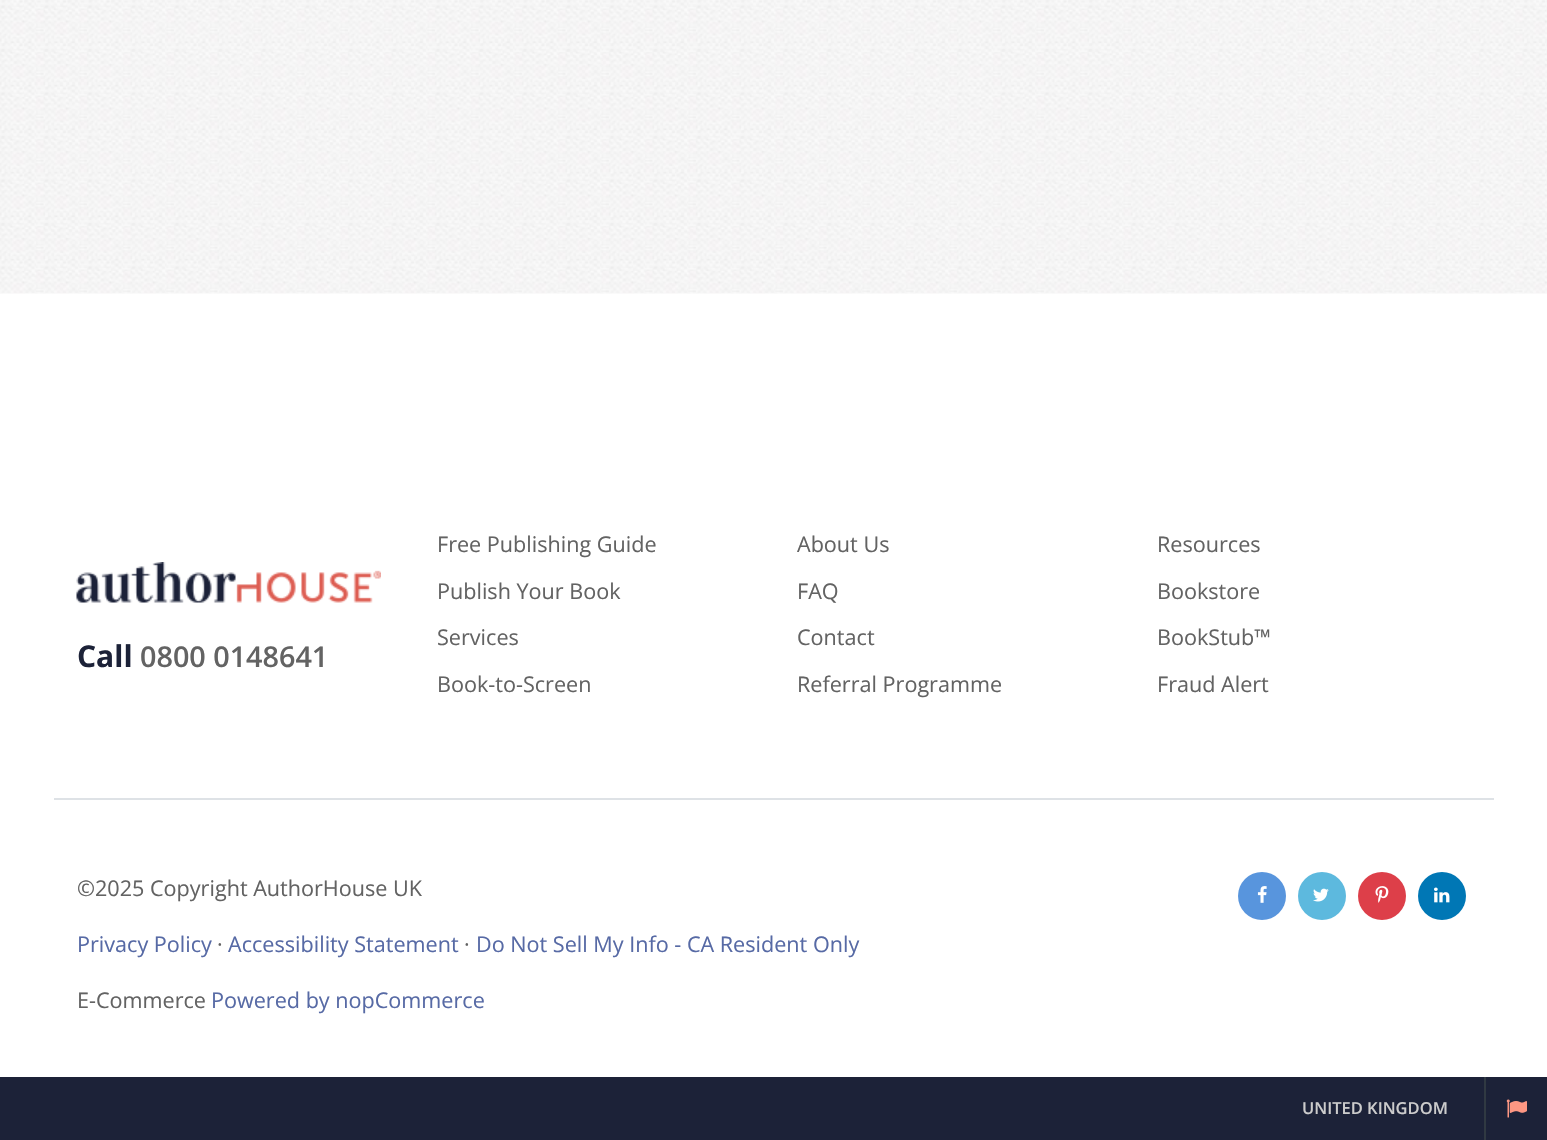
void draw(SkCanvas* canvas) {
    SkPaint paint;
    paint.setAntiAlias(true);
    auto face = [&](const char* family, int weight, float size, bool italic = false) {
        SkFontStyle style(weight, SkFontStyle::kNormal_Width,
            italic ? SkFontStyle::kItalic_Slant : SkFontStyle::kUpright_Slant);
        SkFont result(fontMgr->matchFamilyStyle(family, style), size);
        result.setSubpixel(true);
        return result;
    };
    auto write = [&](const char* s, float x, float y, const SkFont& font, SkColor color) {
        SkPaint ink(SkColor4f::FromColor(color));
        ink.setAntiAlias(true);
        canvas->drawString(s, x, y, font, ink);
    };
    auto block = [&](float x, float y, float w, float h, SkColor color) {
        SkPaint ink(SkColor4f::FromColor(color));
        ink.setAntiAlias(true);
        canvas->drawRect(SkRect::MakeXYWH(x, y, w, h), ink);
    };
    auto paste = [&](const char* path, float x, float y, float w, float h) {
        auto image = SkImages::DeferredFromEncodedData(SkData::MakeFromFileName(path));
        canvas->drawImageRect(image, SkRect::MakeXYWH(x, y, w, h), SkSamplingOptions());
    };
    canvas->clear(SK_ColorWHITE);
    paste("pic1.png", 0, 0, 1547, 294);
    paste("pic2.png", 76, 562, 305, 41);
    auto kFont1 = face("Open Sans", 700, 30);
    write("Call", 77, 667, kFont1, SkColorSetRGB(28, 34, 56));
    auto kFont2 = face("Open Sans", 600, 28.75f);
    write("0800 0148641", 140, 667, kFont2, SkColorSetRGB(99, 99, 99));
    auto kFont3 = face("Open Sans", 400, 21.6f);
    write("Free Publishing Guide", 437, 552, kFont3, SkColorSetRGB(99, 99, 99));
    write("Publish Your Book", 437, 599, kFont3, SkColorSetRGB(99, 99, 99));
    write("Services", 437, 645, kFont3, SkColorSetRGB(99, 99, 99));
    write("Book-to-Screen", 437, 692, kFont3, SkColorSetRGB(99, 99, 99));
    write("About Us", 797, 552, kFont3, SkColorSetRGB(99, 99, 99));
    write("FAQ", 797, 599, kFont3, SkColorSetRGB(99, 99, 99));
    write("Contact", 797, 645, kFont3, SkColorSetRGB(99, 99, 99));
    write("Referral Programme", 797, 692, kFont3, SkColorSetRGB(99, 99, 99));
    write("Resources", 1157, 552, kFont3, SkColorSetRGB(99, 99, 99));
    write("Bookstore", 1157, 599, kFont3, SkColorSetRGB(99, 99, 99));
    write("BookStub™", 1157, 645, kFont3, SkColorSetRGB(99, 99, 99));
    write("Fraud Alert", 1157, 692, kFont3, SkColorSetRGB(99, 99, 99));
    block(54, 798, 1440, 2, SkColorSetRGB(222, 226, 230));
    write("©2025 Copyright AuthorHouse UK", 77, 896, kFont3, SkColorSetRGB(99, 99, 99));
    write("Privacy Policy", 77, 952, kFont3, SkColorSetRGB(87, 106, 165));
    write("·", 217, 952, kFont3, SkColorSetRGB(99, 99, 99));
    write("Accessibility Statement", 228, 952, kFont3, SkColorSetRGB(87, 106, 165));
    write("·", 464, 952, kFont3, SkColorSetRGB(99, 99, 99));
    write("Do Not Sell My Info - CA Resident Only", 476, 952, kFont3, SkColorSetRGB(87, 106, 165));
    write("E-Commerce", 77, 1008, kFont3, SkColorSetRGB(99, 99, 99));
    write("Powered by nopCommerce", 211, 1008, kFont3, SkColorSetRGB(87, 106, 165));
    paint.setColor(SkColorSetRGB(88, 149, 221));
    canvas->drawCircle(1262, 896, 24, paint);
    paste("pic3.png", 1257, 886, 10, 17);
    paint.setColor(SkColorSetRGB(93, 185, 222));
    canvas->drawCircle(1322, 896, 24, paint);
    paste("pic4.png", 1313, 888, 16, 14);
    paint.setColor(SkColorSetRGB(221, 63, 73));
    canvas->drawCircle(1382, 896, 24, paint);
    paste("pic5.png", 1375, 886, 14, 17);
    paint.setColor(SkColorSetRGB(0, 119, 181));
    canvas->drawCircle(1442, 896, 24, paint);
    paste("pic6.png", 1434, 887, 16, 16);
    block(0, 1077, 1547, 63, SkColorSetRGB(28, 34, 56));
    auto kFont4 = face("Open Sans", 600, 16.5f);
    write("UNITED KINGDOM", 1302, 1114, kFont4, SkColorSetRGB(204, 204, 204));
    block(1484, 1077, 2, 63, SkColorSetRGB(48, 57, 66));
    paste("pic7.png", 1506, 1099, 21, 19);
}
